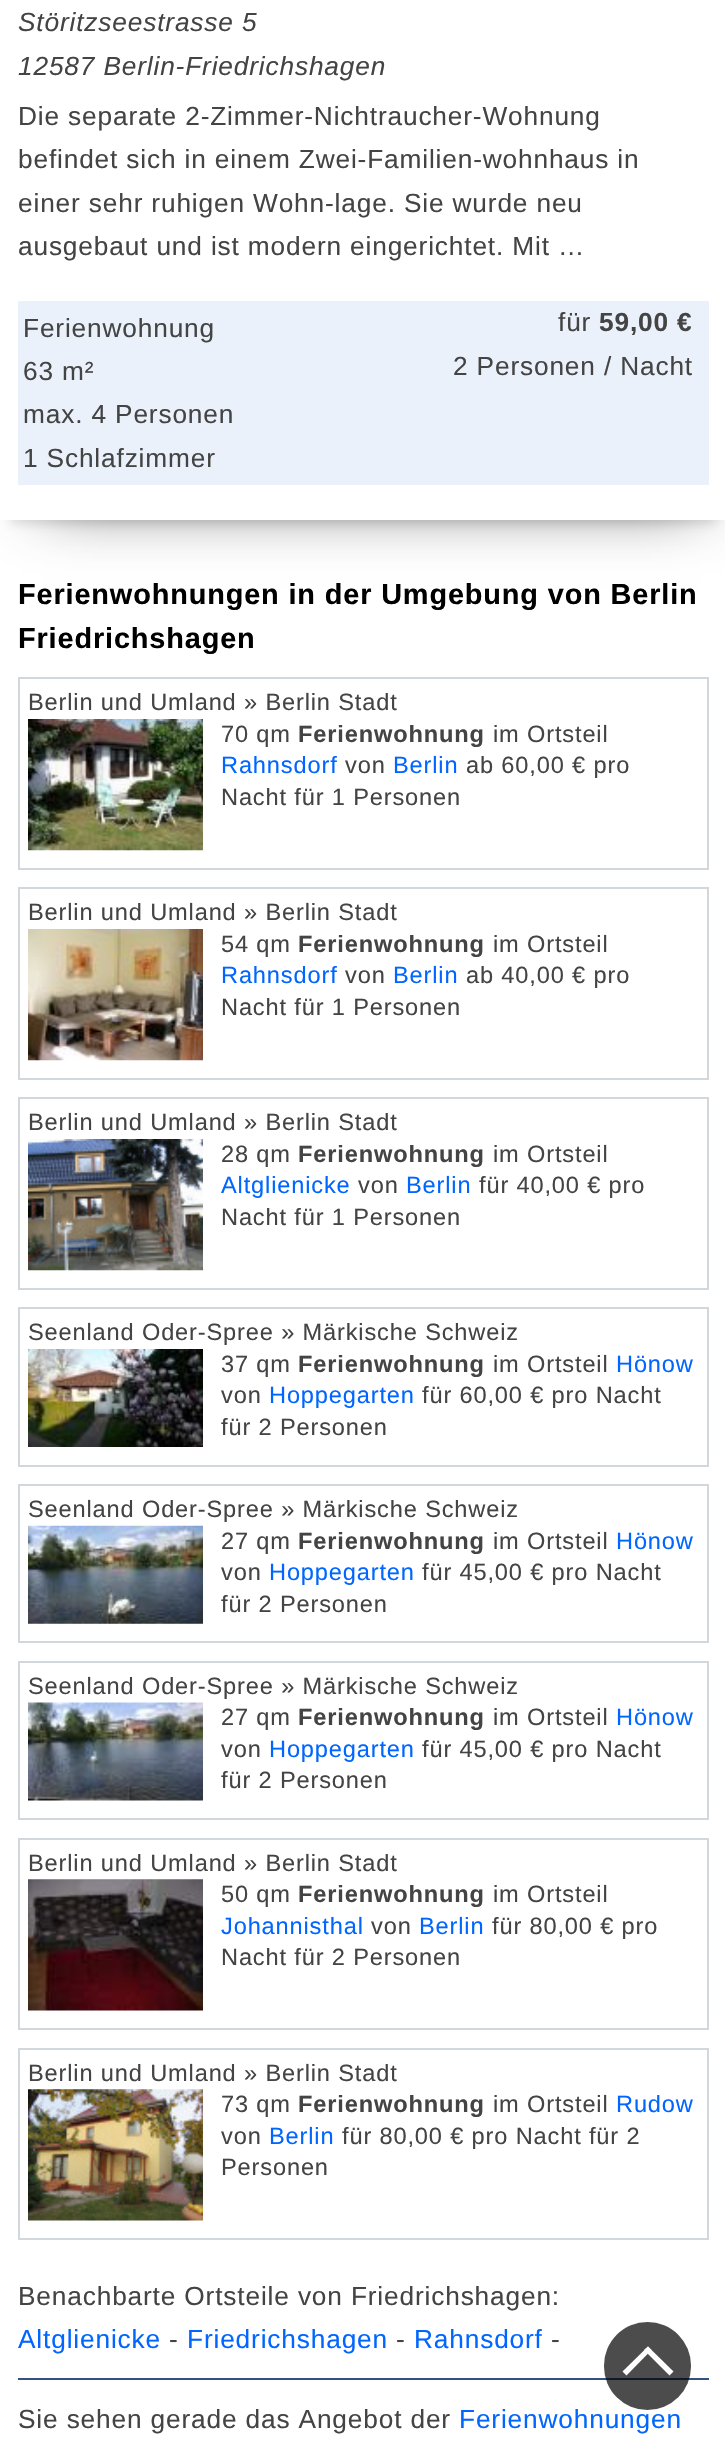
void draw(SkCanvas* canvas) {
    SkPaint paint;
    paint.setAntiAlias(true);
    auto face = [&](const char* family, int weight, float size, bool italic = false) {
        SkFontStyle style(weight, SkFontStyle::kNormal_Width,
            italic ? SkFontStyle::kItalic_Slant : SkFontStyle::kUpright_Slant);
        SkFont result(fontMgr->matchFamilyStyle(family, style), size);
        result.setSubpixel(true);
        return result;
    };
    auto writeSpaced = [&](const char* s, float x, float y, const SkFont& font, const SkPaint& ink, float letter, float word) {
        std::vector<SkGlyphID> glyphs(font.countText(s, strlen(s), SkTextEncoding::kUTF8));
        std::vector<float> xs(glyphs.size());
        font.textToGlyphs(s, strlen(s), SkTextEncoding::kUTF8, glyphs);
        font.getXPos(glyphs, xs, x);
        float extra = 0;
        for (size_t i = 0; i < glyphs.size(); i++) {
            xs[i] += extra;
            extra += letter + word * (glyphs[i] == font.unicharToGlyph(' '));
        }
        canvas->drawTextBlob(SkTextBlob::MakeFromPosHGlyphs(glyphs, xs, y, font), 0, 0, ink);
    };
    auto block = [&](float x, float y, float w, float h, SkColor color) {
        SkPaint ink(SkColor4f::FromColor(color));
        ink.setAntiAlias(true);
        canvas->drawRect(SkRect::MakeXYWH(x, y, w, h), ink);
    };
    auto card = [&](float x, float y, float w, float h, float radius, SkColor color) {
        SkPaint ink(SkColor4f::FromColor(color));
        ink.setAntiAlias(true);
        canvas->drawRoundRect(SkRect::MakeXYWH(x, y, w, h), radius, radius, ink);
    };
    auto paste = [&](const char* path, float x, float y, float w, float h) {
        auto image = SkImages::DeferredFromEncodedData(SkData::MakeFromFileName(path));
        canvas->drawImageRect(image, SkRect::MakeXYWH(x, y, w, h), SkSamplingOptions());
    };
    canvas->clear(SK_ColorWHITE);
    paint.setColor(SkColorSetARGB(36, 33, 33, 33));
    paint.setMaskFilter(SkMaskFilter::MakeBlur(kNormal_SkBlurStyle, 5));
    canvas->drawRect(SkRect::MakeXYWH(11, -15, 705, 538), paint);
    paint.setMaskFilter(nullptr);
    paint.setColor(SkColorSetARGB(191, 0, 0, 0));
    paint.setMaskFilter(SkMaskFilter::MakeBlur(kNormal_SkBlurStyle, 30.5f));
    canvas->drawRect(SkRect::MakeXYWH(44, -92, 656, 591), paint);
    paint.setMaskFilter(nullptr);
    block(0, 0, 725, 520, SK_ColorWHITE);
    auto kFont1 = face("Liberation Sans", 400, 26.25f, true);
    paint.setColor(SkColorSetRGB(68, 68, 68));
    writeSpaced("Störitzseestrasse 5", 18, 31, kFont1, paint, 0.85f, 0);
    writeSpaced("12587 Berlin-Friedrichshagen", 18, 75, kFont1, paint, 0.85f, 0);
    auto kFont2 = face("Liberation Sans", 400, 26.25f);
    writeSpaced("Die separate 2-Zimmer-Nichtraucher-Wohnung", 18, 125, kFont2, paint, 0.85f, 0);
    writeSpaced("befindet sich in einem Zwei-Familien-wohnhaus in", 18, 168, kFont2, paint, 0.85f, 0);
    writeSpaced("einer sehr ruhigen Wohn-lage. Sie wurde neu", 18, 212, kFont2, paint, 0.85f, 0);
    writeSpaced("ausgebaut und ist modern eingerichtet. Mit …", 18, 255, kFont2, paint, 0.85f, 0);
    block(18, 301, 691, 184, SkColorSetRGB(234, 241, 251));
    writeSpaced("Ferienwohnung", 23, 337, kFont2, paint, 0.85f, 0);
    writeSpaced("63 m²", 23, 380, kFont2, paint, 0.85f, 0);
    writeSpaced("für", 558, 331, kFont2, paint, 0.85f, 0);
    auto kFont3 = face("Liberation Sans", 700, 26.25f);
    writeSpaced("59,00 €", 599, 331, kFont3, paint, 0.85f, 0);
    writeSpaced("2 Personen / Nacht", 453, 375, kFont2, paint, 0.85f, 0);
    writeSpaced("max. 4 Personen", 23, 423, kFont2, paint, 0.85f, 0);
    writeSpaced("1 Schlafzimmer", 23, 467, kFont2, paint, 0.85f, 0);
    auto kFont4 = face("Liberation Sans", 700, 28.9f);
    paint.setColor(SK_ColorBLACK);
    writeSpaced("Ferienwohnungen in der Umgebung von Berlin", 18, 604, kFont4, paint, 0.85f, 0);
    writeSpaced("Friedrichshagen", 18, 648, kFont4, paint, 0.85f, 0);
    paint.setStyle(SkPaint::kStroke_Style);
    paint.setStrokeWidth(2);
    paint.setColor(SkColorSetRGB(209, 215, 219));
    canvas->drawRect(SkRect::MakeXYWH(19, 678, 689, 191), paint);
    auto kFont5 = face("Liberation Sans", 400, 23.6f);
    paint.setStyle(SkPaint::kFill_Style);
    paint.setColor(SkColorSetRGB(68, 68, 68));
    writeSpaced("Berlin und Umland » Berlin Stadt", 28, 710, kFont5, paint, 0.85f, 0);
    paste("pic1.png", 28, 719, 175, 132);
    writeSpaced("70 qm", 221, 742, kFont5, paint, 0.85f, 0);
    auto kFont6 = face("Liberation Sans", 700, 23.6f);
    writeSpaced("Ferienwohnung", 298, 742, kFont6, paint, 0.85f, 0);
    writeSpaced("im Ortsteil", 493, 742, kFont5, paint, 0.85f, 0);
    paint.setColor(SkColorSetRGB(0, 102, 255));
    writeSpaced("Rahnsdorf", 221, 773, kFont5, paint, 0.85f, 0);
    paint.setColor(SkColorSetRGB(68, 68, 68));
    writeSpaced("von", 345, 773, kFont5, paint, 0.85f, 0);
    paint.setColor(SkColorSetRGB(0, 102, 255));
    writeSpaced("Berlin", 393, 773, kFont5, paint, 0.85f, 0);
    paint.setColor(SkColorSetRGB(68, 68, 68));
    writeSpaced("ab 60,00 € pro", 466, 773, kFont5, paint, 0.85f, 0);
    writeSpaced("Nacht für 1 Personen", 221, 805, kFont5, paint, 0.85f, 0);
    paint.setStyle(SkPaint::kStroke_Style);
    paint.setColor(SkColorSetRGB(209, 215, 219));
    canvas->drawRect(SkRect::MakeXYWH(19, 888, 689, 191), paint);
    paint.setStyle(SkPaint::kFill_Style);
    paint.setColor(SkColorSetRGB(68, 68, 68));
    writeSpaced("Berlin und Umland » Berlin Stadt", 28, 920, kFont5, paint, 0.85f, 0);
    paste("pic2.png", 28, 929, 175, 132);
    writeSpaced("54 qm", 221, 952, kFont5, paint, 0.85f, 0);
    writeSpaced("Ferienwohnung", 298, 952, kFont6, paint, 0.85f, 0);
    writeSpaced("im Ortsteil", 493, 952, kFont5, paint, 0.85f, 0);
    paint.setColor(SkColorSetRGB(0, 102, 255));
    writeSpaced("Rahnsdorf", 221, 983, kFont5, paint, 0.85f, 0);
    paint.setColor(SkColorSetRGB(68, 68, 68));
    writeSpaced("von", 345, 983, kFont5, paint, 0.85f, 0);
    paint.setColor(SkColorSetRGB(0, 102, 255));
    writeSpaced("Berlin", 393, 983, kFont5, paint, 0.85f, 0);
    paint.setColor(SkColorSetRGB(68, 68, 68));
    writeSpaced("ab 40,00 € pro", 466, 983, kFont5, paint, 0.85f, 0);
    writeSpaced("Nacht für 1 Personen", 221, 1015, kFont5, paint, 0.85f, 0);
    paint.setStyle(SkPaint::kStroke_Style);
    paint.setColor(SkColorSetRGB(209, 215, 219));
    canvas->drawRect(SkRect::MakeXYWH(19, 1098, 689, 191), paint);
    paint.setStyle(SkPaint::kFill_Style);
    paint.setColor(SkColorSetRGB(68, 68, 68));
    writeSpaced("Berlin und Umland » Berlin Stadt", 28, 1130, kFont5, paint, 0.85f, 0);
    paste("pic3.png", 28, 1139, 175, 132);
    writeSpaced("28 qm", 221, 1162, kFont5, paint, 0.85f, 0);
    writeSpaced("Ferienwohnung", 298, 1162, kFont6, paint, 0.85f, 0);
    writeSpaced("im Ortsteil", 493, 1162, kFont5, paint, 0.85f, 0);
    paint.setColor(SkColorSetRGB(0, 102, 255));
    writeSpaced("Altglienicke", 221, 1193, kFont5, paint, 0.85f, 0);
    paint.setColor(SkColorSetRGB(68, 68, 68));
    writeSpaced("von", 358, 1193, kFont5, paint, 0.85f, 0);
    paint.setColor(SkColorSetRGB(0, 102, 255));
    writeSpaced("Berlin", 406, 1193, kFont5, paint, 0.85f, 0);
    paint.setColor(SkColorSetRGB(68, 68, 68));
    writeSpaced("für 40,00 € pro", 479, 1193, kFont5, paint, 0.85f, 0);
    writeSpaced("Nacht für 1 Personen", 221, 1225, kFont5, paint, 0.85f, 0);
    paint.setStyle(SkPaint::kStroke_Style);
    paint.setColor(SkColorSetRGB(209, 215, 219));
    canvas->drawRect(SkRect::MakeXYWH(19, 1308, 689, 158), paint);
    paint.setStyle(SkPaint::kFill_Style);
    paint.setColor(SkColorSetRGB(68, 68, 68));
    writeSpaced("Seenland Oder-Spree » Märkische Schweiz", 28, 1340, kFont5, paint, 0.85f, 0);
    paste("pic4.png", 28, 1349, 175, 98);
    writeSpaced("37 qm", 221, 1372, kFont5, paint, 0.85f, 0);
    writeSpaced("Ferienwohnung", 298, 1372, kFont6, paint, 0.85f, 0);
    writeSpaced("im Ortsteil", 493, 1372, kFont5, paint, 0.85f, 0);
    paint.setColor(SkColorSetRGB(0, 102, 255));
    writeSpaced("Hönow", 616, 1372, kFont5, paint, 0.85f, 0);
    paint.setColor(SkColorSetRGB(68, 68, 68));
    writeSpaced("von", 221, 1403, kFont5, paint, 0.85f, 0);
    paint.setColor(SkColorSetRGB(0, 102, 255));
    writeSpaced("Hoppegarten", 269, 1403, kFont5, paint, 0.85f, 0);
    paint.setColor(SkColorSetRGB(68, 68, 68));
    writeSpaced("für 60,00 € pro Nacht", 422, 1403, kFont5, paint, 0.85f, 0);
    writeSpaced("für 2 Personen", 221, 1435, kFont5, paint, 0.85f, 0);
    paint.setStyle(SkPaint::kStroke_Style);
    paint.setColor(SkColorSetRGB(209, 215, 219));
    canvas->drawRect(SkRect::MakeXYWH(19, 1485, 689, 157), paint);
    paint.setStyle(SkPaint::kFill_Style);
    paint.setColor(SkColorSetRGB(68, 68, 68));
    writeSpaced("Seenland Oder-Spree » Märkische Schweiz", 28, 1517, kFont5, paint, 0.85f, 0);
    paste("pic5.png", 28, 1525, 175, 99);
    writeSpaced("27 qm", 221, 1549, kFont5, paint, 0.85f, 0);
    writeSpaced("Ferienwohnung", 298, 1549, kFont6, paint, 0.85f, 0);
    writeSpaced("im Ortsteil", 493, 1549, kFont5, paint, 0.85f, 0);
    paint.setColor(SkColorSetRGB(0, 102, 255));
    writeSpaced("Hönow", 616, 1549, kFont5, paint, 0.85f, 0);
    paint.setColor(SkColorSetRGB(68, 68, 68));
    writeSpaced("von", 221, 1580, kFont5, paint, 0.85f, 0);
    paint.setColor(SkColorSetRGB(0, 102, 255));
    writeSpaced("Hoppegarten", 269, 1580, kFont5, paint, 0.85f, 0);
    paint.setColor(SkColorSetRGB(68, 68, 68));
    writeSpaced("für 45,00 € pro Nacht", 422, 1580, kFont5, paint, 0.85f, 0);
    writeSpaced("für 2 Personen", 221, 1612, kFont5, paint, 0.85f, 0);
    paint.setStyle(SkPaint::kStroke_Style);
    paint.setColor(SkColorSetRGB(209, 215, 219));
    canvas->drawRect(SkRect::MakeXYWH(19, 1662, 689, 157), paint);
    paint.setStyle(SkPaint::kFill_Style);
    paint.setColor(SkColorSetRGB(68, 68, 68));
    writeSpaced("Seenland Oder-Spree » Märkische Schweiz", 28, 1694, kFont5, paint, 0.85f, 0);
    paste("pic6.png", 28, 1702, 175, 99);
    writeSpaced("27 qm", 221, 1725, kFont5, paint, 0.85f, 0);
    writeSpaced("Ferienwohnung", 298, 1725, kFont6, paint, 0.85f, 0);
    writeSpaced("im Ortsteil", 493, 1725, kFont5, paint, 0.85f, 0);
    paint.setColor(SkColorSetRGB(0, 102, 255));
    writeSpaced("Hönow", 616, 1725, kFont5, paint, 0.85f, 0);
    paint.setColor(SkColorSetRGB(68, 68, 68));
    writeSpaced("von", 221, 1757, kFont5, paint, 0.85f, 0);
    paint.setColor(SkColorSetRGB(0, 102, 255));
    writeSpaced("Hoppegarten", 269, 1757, kFont5, paint, 0.85f, 0);
    paint.setColor(SkColorSetRGB(68, 68, 68));
    writeSpaced("für 45,00 € pro Nacht", 422, 1757, kFont5, paint, 0.85f, 0);
    writeSpaced("für 2 Personen", 221, 1788, kFont5, paint, 0.85f, 0);
    paint.setStyle(SkPaint::kStroke_Style);
    paint.setColor(SkColorSetRGB(209, 215, 219));
    canvas->drawRect(SkRect::MakeXYWH(19, 1839, 689, 190), paint);
    paint.setStyle(SkPaint::kFill_Style);
    paint.setColor(SkColorSetRGB(68, 68, 68));
    writeSpaced("Berlin und Umland » Berlin Stadt", 28, 1871, kFont5, paint, 0.85f, 0);
    paste("pic7.png", 28, 1879, 175, 132);
    writeSpaced("50 qm", 221, 1902, kFont5, paint, 0.85f, 0);
    writeSpaced("Ferienwohnung", 298, 1902, kFont6, paint, 0.85f, 0);
    writeSpaced("im Ortsteil", 493, 1902, kFont5, paint, 0.85f, 0);
    paint.setColor(SkColorSetRGB(0, 102, 255));
    writeSpaced("Johannisthal", 221, 1934, kFont5, paint, 0.85f, 0);
    paint.setColor(SkColorSetRGB(68, 68, 68));
    writeSpaced("von", 371, 1934, kFont5, paint, 0.85f, 0);
    paint.setColor(SkColorSetRGB(0, 102, 255));
    writeSpaced("Berlin", 419, 1934, kFont5, paint, 0.85f, 0);
    paint.setColor(SkColorSetRGB(68, 68, 68));
    writeSpaced("für 80,00 € pro", 492, 1934, kFont5, paint, 0.85f, 0);
    writeSpaced("Nacht für 2 Personen", 221, 1965, kFont5, paint, 0.85f, 0);
    paint.setStyle(SkPaint::kStroke_Style);
    paint.setColor(SkColorSetRGB(209, 215, 219));
    canvas->drawRect(SkRect::MakeXYWH(19, 2049, 689, 190), paint);
    paint.setStyle(SkPaint::kFill_Style);
    paint.setColor(SkColorSetRGB(68, 68, 68));
    writeSpaced("Berlin und Umland » Berlin Stadt", 28, 2081, kFont5, paint, 0.85f, 0);
    paste("pic8.png", 28, 2089, 175, 132);
    writeSpaced("73 qm", 221, 2112, kFont5, paint, 0.85f, 0);
    writeSpaced("Ferienwohnung", 298, 2112, kFont6, paint, 0.85f, 0);
    writeSpaced("im Ortsteil", 493, 2112, kFont5, paint, 0.85f, 0);
    paint.setColor(SkColorSetRGB(0, 102, 255));
    writeSpaced("Rudow", 616, 2112, kFont5, paint, 0.85f, 0);
    paint.setColor(SkColorSetRGB(68, 68, 68));
    writeSpaced("von", 221, 2144, kFont5, paint, 0.85f, 0);
    paint.setColor(SkColorSetRGB(0, 102, 255));
    writeSpaced("Berlin", 269, 2144, kFont5, paint, 0.85f, 0);
    paint.setColor(SkColorSetRGB(68, 68, 68));
    writeSpaced("für 80,00 € pro Nacht für 2", 342, 2144, kFont5, paint, 0.85f, 0);
    writeSpaced("Personen", 221, 2175, kFont5, paint, 0.85f, 0);
    writeSpaced("Benachbarte Ortsteile von Friedrichshagen:", 18, 2305, kFont2, paint, 0.85f, 0);
    paint.setColor(SkColorSetRGB(0, 102, 255));
    writeSpaced("Altglienicke", 18, 2348, kFont2, paint, 0.85f, 0);
    paint.setColor(SkColorSetRGB(68, 68, 68));
    writeSpaced("-", 169, 2348, kFont2, paint, 0.85f, 0);
    paint.setColor(SkColorSetRGB(0, 102, 255));
    writeSpaced("Friedrichshagen", 187, 2348, kFont2, paint, 0.85f, 0);
    paint.setColor(SkColorSetRGB(68, 68, 68));
    writeSpaced("-", 396, 2348, kFont2, paint, 0.85f, 0);
    paint.setColor(SkColorSetRGB(0, 102, 255));
    writeSpaced("Rahnsdorf", 414, 2348, kFont2, paint, 0.85f, 0);
    paint.setColor(SkColorSetRGB(68, 68, 68));
    writeSpaced("-", 551, 2348, kFont2, paint, 0.85f, 0);
    block(18, 2378, 691, 2, SkColorSetRGB(53, 81, 129));
    writeSpaced("Sie sehen gerade das Angebot der", 18, 2428, kFont2, paint, 0.85f, 0);
    paint.setColor(SkColorSetRGB(0, 102, 255));
    writeSpaced("Ferienwohnungen", 459, 2428, kFont2, paint, 0.85f, 0);
    card(604, 2322, 87, 88, 43.5f, SkColorSetARGB(179, 0, 0, 0));
    paint.setColor(SK_ColorWHITE);
    canvas->drawPath(SkPathBuilder().moveTo(626.5f, 2375.5f).lineTo(622.5f, 2371.5f).lineTo(648, 2346.5f).lineTo(651.5f, 2350).close().detach(), paint);
    canvas->drawPath(SkPathBuilder().moveTo(669.5f, 2375.5f).lineTo(644, 2350).lineTo(648, 2346.5f).lineTo(673.5f, 2371.5f).close().detach(), paint);
}
